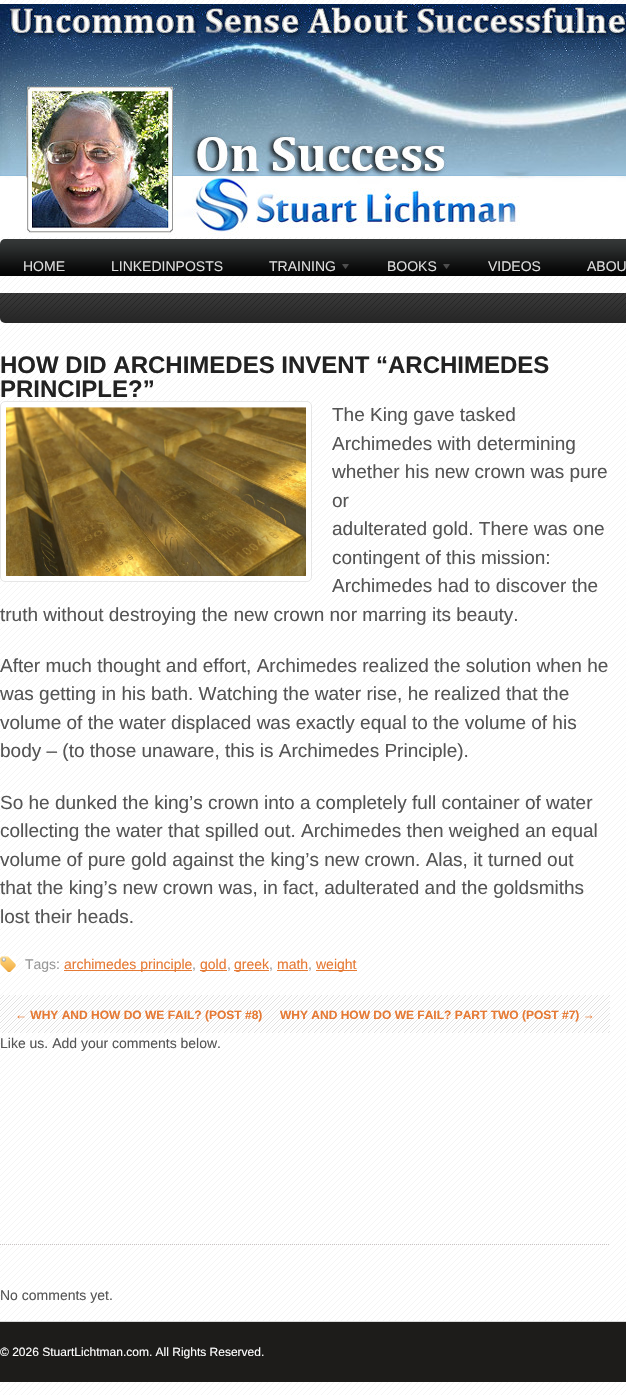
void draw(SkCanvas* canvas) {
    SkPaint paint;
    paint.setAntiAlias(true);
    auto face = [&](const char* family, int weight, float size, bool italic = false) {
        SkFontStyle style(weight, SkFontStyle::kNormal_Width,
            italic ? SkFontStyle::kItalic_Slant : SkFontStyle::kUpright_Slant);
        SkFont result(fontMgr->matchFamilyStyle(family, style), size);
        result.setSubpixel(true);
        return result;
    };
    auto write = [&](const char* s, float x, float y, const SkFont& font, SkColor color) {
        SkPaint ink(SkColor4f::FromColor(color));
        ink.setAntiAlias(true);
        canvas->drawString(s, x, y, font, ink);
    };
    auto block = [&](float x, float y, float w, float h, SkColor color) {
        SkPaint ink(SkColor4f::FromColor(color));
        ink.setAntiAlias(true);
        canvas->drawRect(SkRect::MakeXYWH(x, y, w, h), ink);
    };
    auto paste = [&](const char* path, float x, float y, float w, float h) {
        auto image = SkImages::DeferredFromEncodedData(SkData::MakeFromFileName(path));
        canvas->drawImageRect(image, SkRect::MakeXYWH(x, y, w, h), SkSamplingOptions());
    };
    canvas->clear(SK_ColorWHITE);
    paste("pic1.png", 0, 0, 626, 1395);
    paste("pic2.png", 0, 4, 626, 233);
    paste("pic3.png", 0, 239, 626, 37);
    auto kFont1 = face("Liberation Sans", 400, 14);
    write("HOME", 23, 271, kFont1, SkColorSetRGB(221, 221, 221));
    write("LINKEDINPOSTS", 111, 271, kFont1, SkColorSetRGB(221, 221, 221));
    write("TRAINING", 269, 271, kFont1, SkColorSetRGB(221, 221, 221));
    paste("pic4.png", 342, 264, 7, 5);
    write("BOOKS", 387, 271, kFont1, SkColorSetRGB(221, 221, 221));
    paste("pic4.png", 443, 264, 7, 5);
    write("VIDEOS", 488, 271, kFont1, SkColorSetRGB(221, 221, 221));
    write("ABOU", 587, 271, kFont1, SkColorSetRGB(221, 221, 221));
    paste("pic5.png", 0, 293, 626, 30);
    auto kFont2 = face("Liberation Sans", 700, 24);
    write("HOW DID ARCHIMEDES INVENT “ARCHIMEDES", 0, 373, kFont2, SkColorSetRGB(34, 34, 34));
    write("PRINCIPLE?”", 0, 397, kFont2, SkColorSetRGB(34, 34, 34));
    paint.setColor(SK_ColorWHITE);
    canvas->drawRoundRect(SkRect::MakeXYWH(0.5f, 401.5f, 311, 180), 4.5f, 4.5f, paint);
    paint.setStyle(SkPaint::kStroke_Style);
    paint.setStrokeWidth(1);
    paint.setColor(SkColorSetRGB(230, 230, 230));
    canvas->drawRoundRect(SkRect::MakeXYWH(0.5f, 401.5f, 311, 180), 4.5f, 4.5f, paint);
    paste("pic6.png", 6, 407, 300, 169);
    auto kFont3 = face("Liberation Sans", 400, 19);
    write("The King gave tasked", 332, 421, kFont3, SkColorSetRGB(85, 85, 85));
    write("Archimedes with determining", 332, 450, kFont3, SkColorSetRGB(85, 85, 85));
    write("whether his new crown was pure", 332, 478, kFont3, SkColorSetRGB(85, 85, 85));
    write("or", 332, 507, kFont3, SkColorSetRGB(85, 85, 85));
    write("adulterated gold. There was one", 332, 535, kFont3, SkColorSetRGB(85, 85, 85));
    write("contingent of this mission:", 332, 564, kFont3, SkColorSetRGB(85, 85, 85));
    write("Archimedes had to discover the", 332, 592, kFont3, SkColorSetRGB(85, 85, 85));
    write("truth without destroying the new crown nor marring its beauty.", 0, 621, kFont3, SkColorSetRGB(85, 85, 85));
    write("After much thought and effort, Archimedes realized the solution when he", 0, 672, kFont3, SkColorSetRGB(85, 85, 85));
    write("was getting in his bath. Watching the water rise, he realized that the", 0, 700, kFont3, SkColorSetRGB(85, 85, 85));
    write("volume of the water displaced was exactly equal to the volume of his", 0, 729, kFont3, SkColorSetRGB(85, 85, 85));
    write("body – (to those unaware, this is Archimedes Principle).", 0, 757, kFont3, SkColorSetRGB(85, 85, 85));
    write("So he dunked the king’s crown into a completely full container of water", 0, 809, kFont3, SkColorSetRGB(85, 85, 85));
    write("collecting the water that spilled out. Archimedes then weighed an equal", 0, 837, kFont3, SkColorSetRGB(85, 85, 85));
    write("volume of pure gold against the king’s new crown. Alas, it turned out", 0, 866, kFont3, SkColorSetRGB(85, 85, 85));
    write("that the king’s new crown was, in fact, adulterated and the goldsmiths", 0, 894, kFont3, SkColorSetRGB(85, 85, 85));
    write("lost their heads.", 0, 923, kFont3, SkColorSetRGB(85, 85, 85));
    paste("pic7.png", 0, 956, 16, 16);
    write("Tags:", 25, 969, kFont1, SkColorSetRGB(153, 153, 153));
    block(64, 970, 128, 1, SkColorSetRGB(230, 121, 51));
    write("archimedes principle", 64, 969, kFont1, SkColorSetRGB(230, 121, 51));
    write(",", 192, 969, kFont1, SkColorSetRGB(153, 153, 153));
    block(200, 970, 27, 1, SkColorSetRGB(230, 121, 51));
    write("gold", 200, 969, kFont1, SkColorSetRGB(230, 121, 51));
    write(",", 227, 969, kFont1, SkColorSetRGB(153, 153, 153));
    block(234, 970, 35, 1, SkColorSetRGB(230, 121, 51));
    write("greek", 234, 969, kFont1, SkColorSetRGB(230, 121, 51));
    write(",", 269, 969, kFont1, SkColorSetRGB(153, 153, 153));
    write("math", 277, 969, kFont1, SkColorSetRGB(230, 121, 51));
    block(277, 970, 31, 1, SkColorSetRGB(230, 121, 51));
    write(",", 308, 969, kFont1, SkColorSetRGB(153, 153, 153));
    block(316, 970, 41, 1, SkColorSetRGB(230, 121, 51));
    write("weight", 316, 969, kFont1, SkColorSetRGB(230, 121, 51));
    paste("pic8.png", 0, 995, 610, 38);
    auto kFont4 = face("Liberation Sans", 700, 12);
    write("← WHY AND HOW DO WE FAIL? (POST #8)", 15, 1019, kFont4, SkColorSetRGB(230, 121, 51));
    write("WHY AND HOW DO WE FAIL? PART TWO (POST #7) →", 280, 1019, kFont4, SkColorSetRGB(230, 121, 51));
    write("Like us. Add your comments below.", 0, 1048, kFont1, SkColorSetRGB(85, 85, 85));
    paint.setColor(SkColorSetRGB(201, 196, 196));
    paint.setPathEffect(SkDashPathEffect::Make({{1, 1}}, 0));
    canvas->drawPath(SkPathBuilder().moveTo(0, 1244.5f).lineTo(610, 1244.5f).detach(), paint);
    paint.setPathEffect(nullptr);
    write("No comments yet.", 0, 1300, kFont1, SkColorSetRGB(85, 85, 85));
    block(0, 1322, 626, 60, SkColorSetRGB(29, 28, 26));
    block(0, 1321, 626, 1, SkColorSetRGB(217, 217, 217));
    auto kFont5 = face("Liberation Sans", 400, 12);
    write("© 2026 StuartLichtman.com. All Rights Reserved.", 0, 1356, kFont5, SK_ColorWHITE);
}
